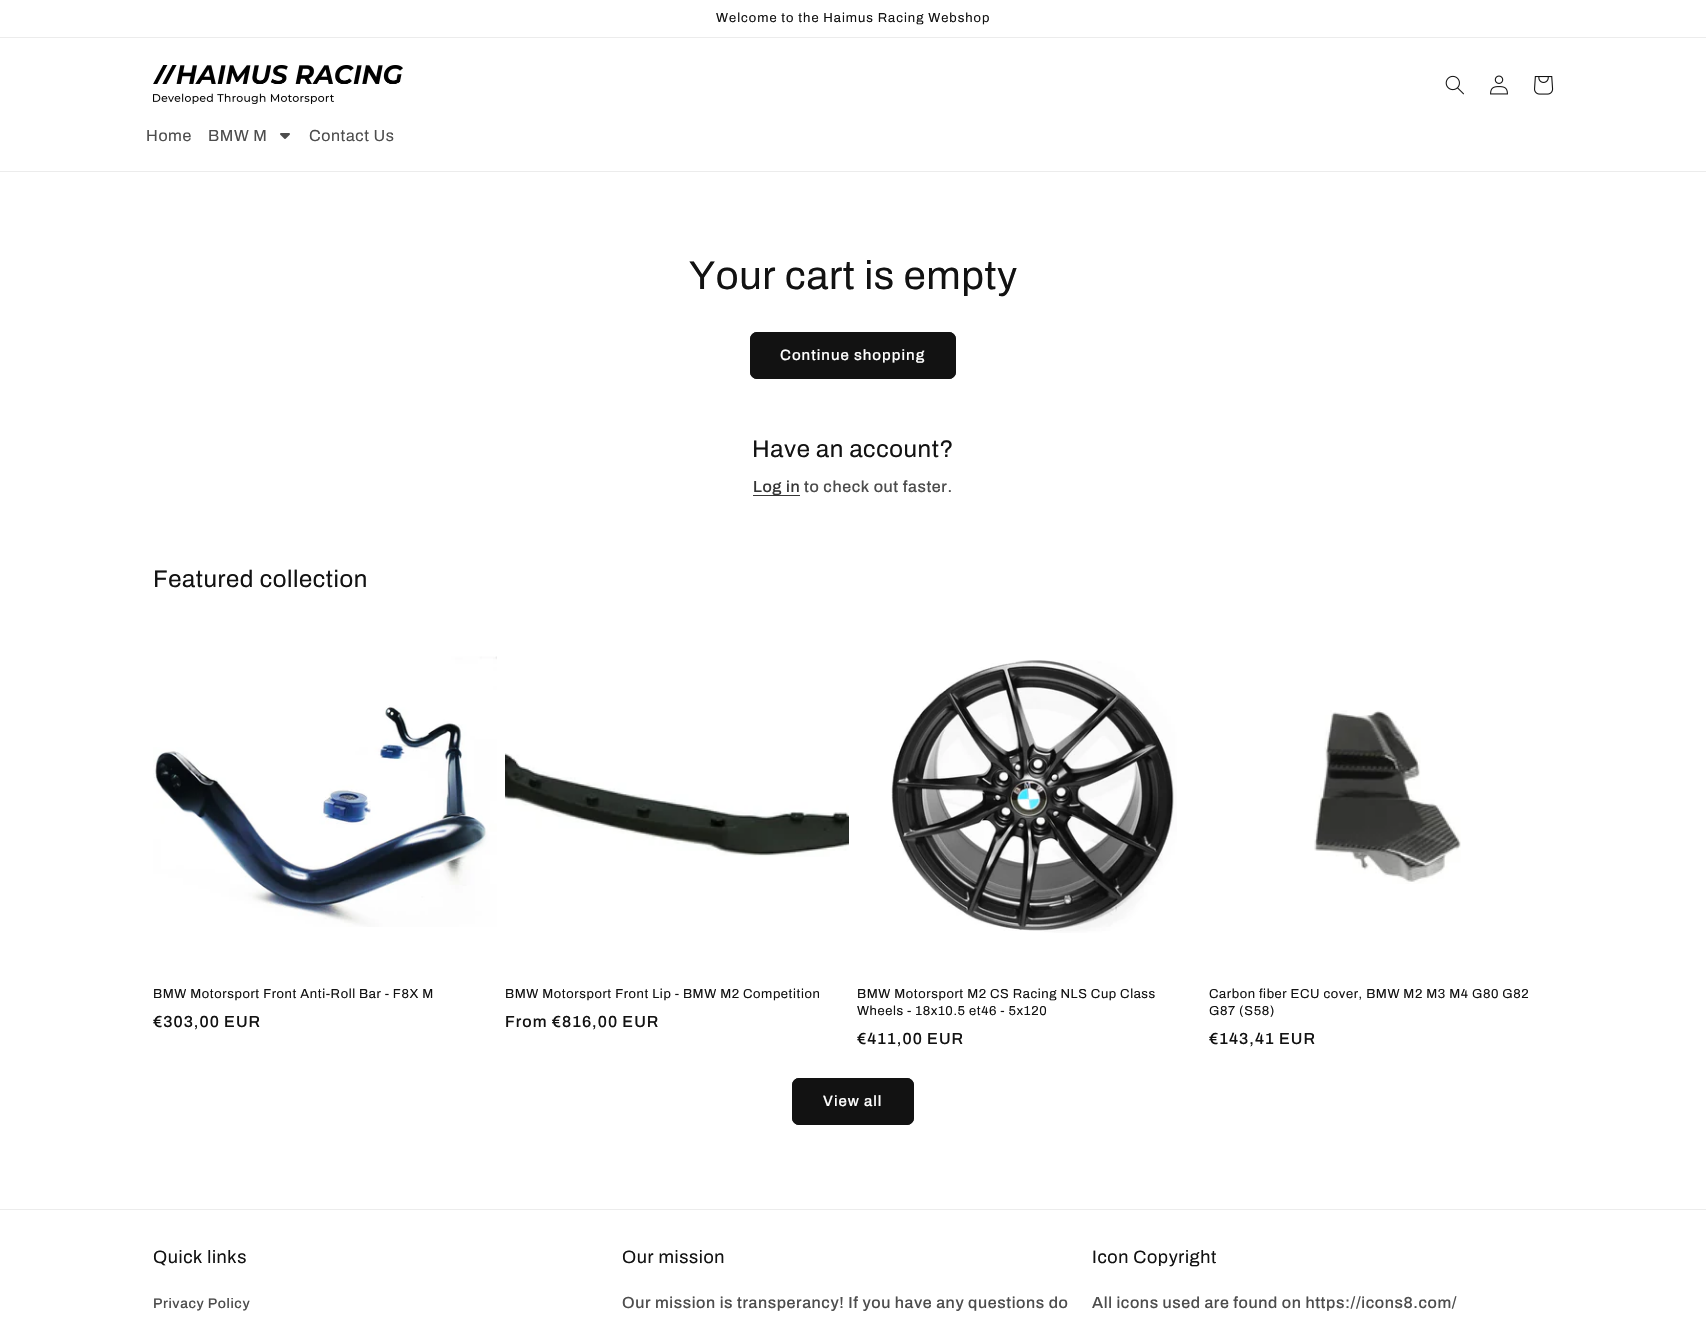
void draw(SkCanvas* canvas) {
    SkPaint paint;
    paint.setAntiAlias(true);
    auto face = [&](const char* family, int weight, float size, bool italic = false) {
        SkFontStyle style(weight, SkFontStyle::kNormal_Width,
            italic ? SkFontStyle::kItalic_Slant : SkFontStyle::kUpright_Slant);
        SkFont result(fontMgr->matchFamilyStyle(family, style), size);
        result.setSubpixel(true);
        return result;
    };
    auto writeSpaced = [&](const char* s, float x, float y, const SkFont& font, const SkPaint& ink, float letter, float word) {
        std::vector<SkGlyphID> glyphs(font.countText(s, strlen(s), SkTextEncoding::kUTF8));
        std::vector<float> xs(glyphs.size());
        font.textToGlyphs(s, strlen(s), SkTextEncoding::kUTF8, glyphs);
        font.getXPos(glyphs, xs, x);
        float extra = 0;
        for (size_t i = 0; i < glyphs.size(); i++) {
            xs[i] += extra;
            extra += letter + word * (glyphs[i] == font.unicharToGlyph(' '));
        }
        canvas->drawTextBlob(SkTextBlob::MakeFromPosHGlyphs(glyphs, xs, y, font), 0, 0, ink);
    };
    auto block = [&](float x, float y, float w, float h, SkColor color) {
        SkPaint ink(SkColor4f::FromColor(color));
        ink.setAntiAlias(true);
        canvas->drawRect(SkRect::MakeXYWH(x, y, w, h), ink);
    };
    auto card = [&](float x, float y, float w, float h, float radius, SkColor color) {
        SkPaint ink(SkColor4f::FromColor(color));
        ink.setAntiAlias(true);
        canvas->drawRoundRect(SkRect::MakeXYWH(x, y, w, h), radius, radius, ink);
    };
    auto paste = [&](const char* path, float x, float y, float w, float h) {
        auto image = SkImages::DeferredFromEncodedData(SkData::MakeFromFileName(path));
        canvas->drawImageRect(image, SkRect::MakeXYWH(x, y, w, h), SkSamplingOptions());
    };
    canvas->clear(SK_ColorWHITE);
    block(0, 37, 1706, 1, SkColorSetRGB(236, 236, 236));
    auto kFont1 = face("Archivo", 400, 13);
    paint.setColor(SkColorSetRGB(18, 18, 18));
    writeSpaced("Welcome to the Haimus Racing Webshop", 716, 22, kFont1, paint, 1, 0);
    block(0, 171, 1706, 1, SkColorSetRGB(236, 236, 236));
    paste("pic1.png", 153, 65, 250, 39);
    paste("pic2.png", 1445, 75, 19, 20);
    paste("pic3.png", 1490, 75, 18, 20);
    paste("pic4.png", 1534, 76, 20, 19);
    auto kFont2 = face("Archivo", 400, 16);
    paint.setColor(SkColorSetRGB(77, 77, 77));
    writeSpaced("Home", 146, 141, kFont2, paint, 0.6f, 0);
    writeSpaced("BMW M", 208, 141, kFont2, paint, 0.6f, 0);
    paste("pic5.png", 280, 133, 10, 6);
    writeSpaced("Contact Us", 309, 141, kFont2, paint, 0.6f, 0);
    auto kFont3 = face("Archivo", 400, 40);
    paint.setColor(SkColorSetRGB(18, 18, 18));
    writeSpaced("Your cart is empty", 689, 289, kFont3, paint, 0.6f, 0);
    card(750, 332, 206, 47, 7, SkColorSetRGB(18, 18, 18));
    paint.setStyle(SkPaint::kStroke_Style);
    paint.setStrokeWidth(1);
    canvas->drawRoundRect(SkRect::MakeXYWH(750.5f, 332.5f, 205, 46), 6.5f, 6.5f, paint);
    auto kFont4 = face("Archivo", 500, 15);
    paint.setStyle(SkPaint::kFill_Style);
    paint.setColor(SK_ColorWHITE);
    writeSpaced("Continue shopping", 780, 360, kFont4, paint, 1, 0);
    auto kFont5 = face("Archivo", 400, 24);
    paint.setColor(SkColorSetRGB(18, 18, 18));
    writeSpaced("Have an account?", 752, 457, kFont5, paint, 0.6f, 0);
    auto kFont6 = face("Archivo", 500, 16);
    paint.setColor(SkColorSetRGB(54, 54, 54));
    writeSpaced("Log in", 753, 492, kFont6, paint, 0.6f, 0);
    block(753, 495, 47, 1, SkColorSetRGB(54, 54, 54));
    paint.setColor(SkColorSetRGB(77, 77, 77));
    writeSpaced("to check out faster.", 804, 492, kFont6, paint, 0.6f, 0);
    paint.setColor(SkColorSetRGB(18, 18, 18));
    writeSpaced("Featured collection", 153, 587, kFont5, paint, 0.6f, 0);
    paste("pic6.png", 153, 656, 344, 271);
    writeSpaced("BMW Motorsport Front Anti-Roll Bar - F8X M", 153, 998, kFont1, paint, 0.6f, 0);
    writeSpaced("€303,00 EUR", 153, 1027, kFont6, paint, 1, 0);
    paste("pic7.png", 505, 753, 344, 104);
    writeSpaced("BMW Motorsport Front Lip - BMW M2 Competition", 505, 998, kFont1, paint, 0.6f, 0);
    writeSpaced("From €816,00 EUR", 505, 1027, kFont6, paint, 1, 0);
    paste("pic8.png", 891, 660, 286, 273);
    writeSpaced("BMW Motorsport M2 CS Racing NLS Cup Class", 857, 998, kFont1, paint, 0.6f, 0);
    writeSpaced("Wheels - 18x10.5 et46 - 5x120", 857, 1015, kFont1, paint, 0.6f, 0);
    writeSpaced("€411,00 EUR", 857, 1044, kFont6, paint, 1, 0);
    paste("pic9.png", 1314, 710, 147, 174);
    writeSpaced("Carbon fiber ECU cover, BMW M2 M3 M4 G80 G82", 1209, 998, kFont1, paint, 0.6f, 0);
    writeSpaced("G87 (S58)", 1209, 1015, kFont1, paint, 0.6f, 0);
    writeSpaced("€143,41 EUR", 1209, 1044, kFont6, paint, 1, 0);
    card(792, 1078, 122, 47, 7, SkColorSetRGB(18, 18, 18));
    paint.setStyle(SkPaint::kStroke_Style);
    canvas->drawRoundRect(SkRect::MakeXYWH(792.5f, 1078.5f, 121, 46), 6.5f, 6.5f, paint);
    paint.setStyle(SkPaint::kFill_Style);
    paint.setColor(SK_ColorWHITE);
    writeSpaced("View all", 823, 1106, kFont4, paint, 1, 0);
    block(0, 1209, 1706, 1, SkColorSetRGB(236, 236, 236));
    auto kFont7 = face("Archivo", 400, 18);
    paint.setColor(SkColorSetRGB(18, 18, 18));
    writeSpaced("Quick links", 153, 1263, kFont7, paint, 0.6f, 0);
    auto kFont8 = face("Archivo", 500, 14);
    paint.setColor(SkColorSetRGB(77, 77, 77));
    writeSpaced("Privacy Policy", 153, 1308, kFont8, paint, 0.6f, 0);
    paint.setColor(SkColorSetRGB(18, 18, 18));
    writeSpaced("Our mission", 622, 1263, kFont7, paint, 0.6f, 0);
    paint.setColor(SkColorSetRGB(77, 77, 77));
    writeSpaced("Our mission is transperancy! If you have any questions do", 622, 1308, kFont6, paint, 0.6f, 0);
    paint.setColor(SkColorSetRGB(18, 18, 18));
    writeSpaced("Icon Copyright", 1092, 1263, kFont7, paint, 0.6f, 0);
    paint.setColor(SkColorSetRGB(77, 77, 77));
    writeSpaced("All icons used are found on https://icons8.com/", 1092, 1308, kFont6, paint, 0.6f, 0);
}
